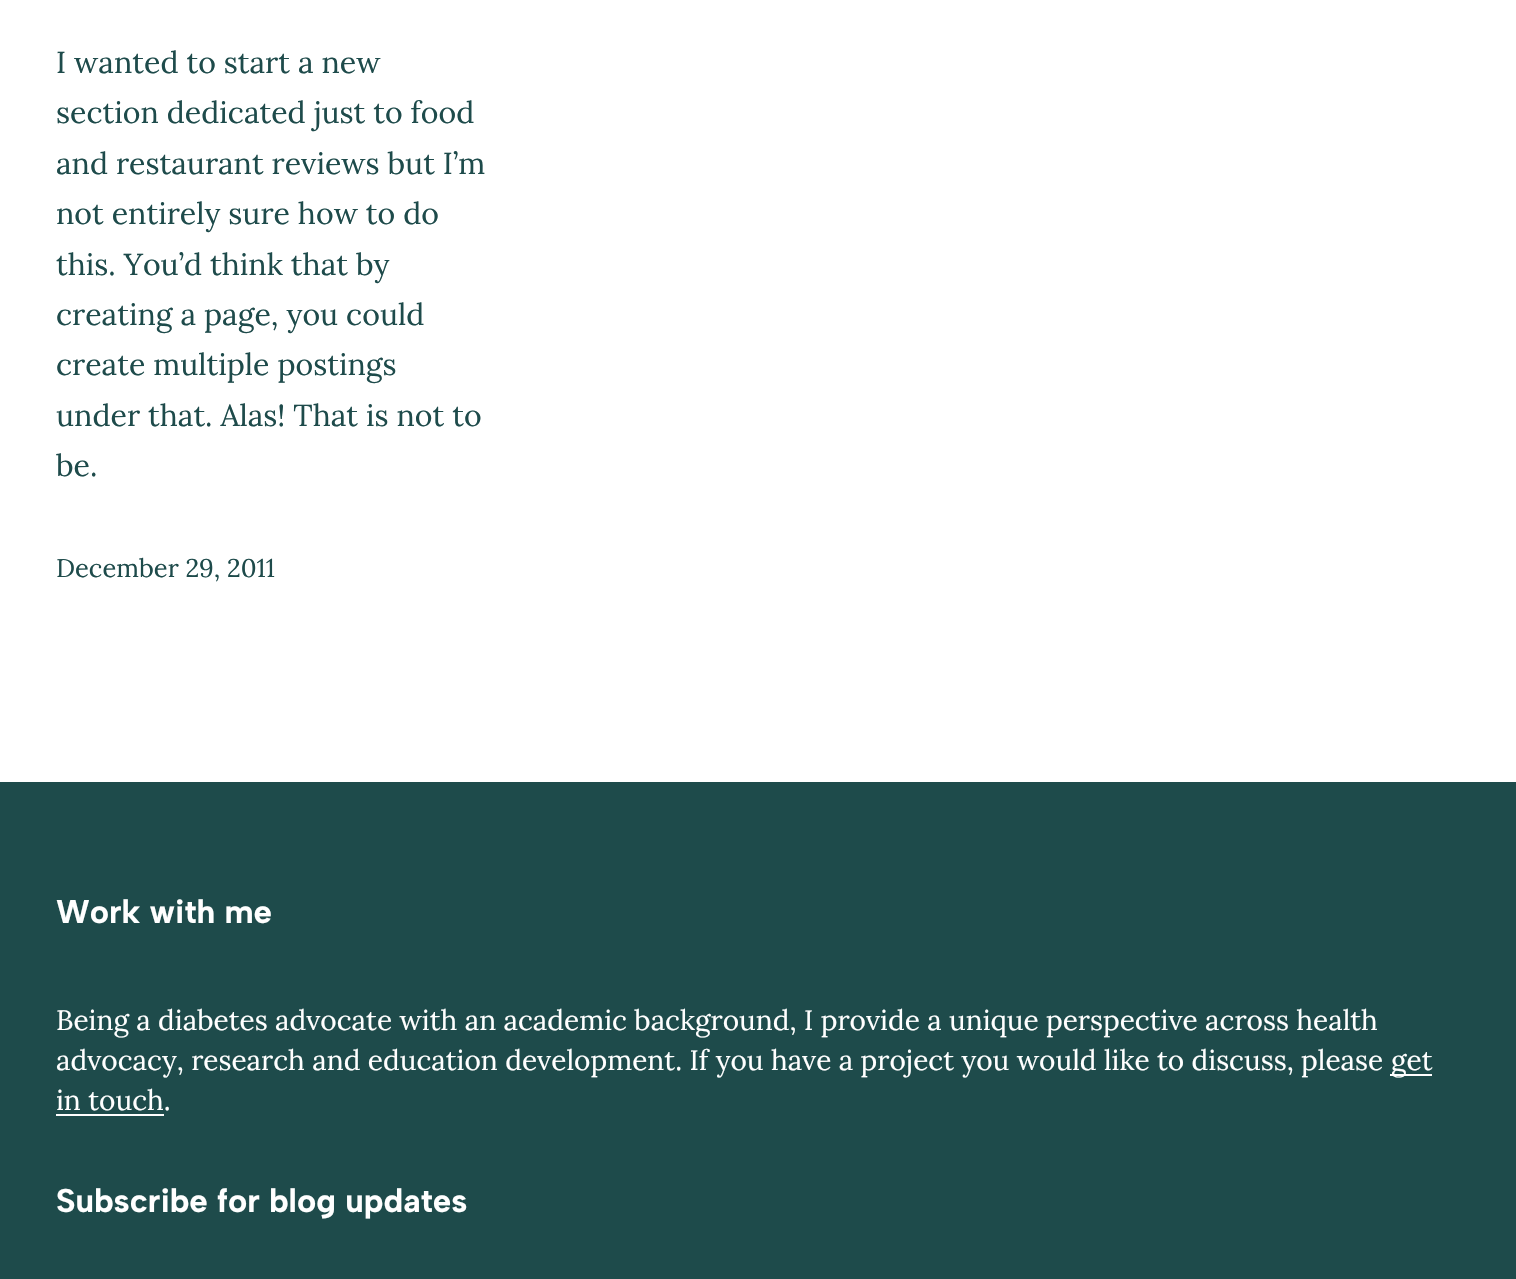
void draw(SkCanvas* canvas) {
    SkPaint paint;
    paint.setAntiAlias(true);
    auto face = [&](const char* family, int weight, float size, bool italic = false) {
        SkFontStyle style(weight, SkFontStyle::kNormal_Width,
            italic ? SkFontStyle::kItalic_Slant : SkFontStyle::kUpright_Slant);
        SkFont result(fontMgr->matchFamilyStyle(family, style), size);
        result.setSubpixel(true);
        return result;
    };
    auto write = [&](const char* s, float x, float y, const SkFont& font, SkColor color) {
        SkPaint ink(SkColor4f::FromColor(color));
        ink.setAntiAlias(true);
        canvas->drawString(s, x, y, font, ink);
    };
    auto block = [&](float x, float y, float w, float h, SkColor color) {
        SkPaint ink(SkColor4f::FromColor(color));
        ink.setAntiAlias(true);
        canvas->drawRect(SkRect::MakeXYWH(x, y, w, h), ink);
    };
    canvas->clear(SK_ColorWHITE);
    auto kFont1 = face("Lora", 400, 30.25f);
    write("I wanted to start a new", 56, 73, kFont1, SkColorSetRGB(30, 75, 75));
    write("section dedicated just to food", 56, 123, kFont1, SkColorSetRGB(30, 75, 75));
    write("and restaurant reviews but I’m", 56, 174, kFont1, SkColorSetRGB(30, 75, 75));
    write("not entirely sure how to do", 56, 224, kFont1, SkColorSetRGB(30, 75, 75));
    write("this. You’d think that by", 56, 275, kFont1, SkColorSetRGB(30, 75, 75));
    write("creating a page, you could", 56, 325, kFont1, SkColorSetRGB(30, 75, 75));
    write("create multiple postings", 56, 375, kFont1, SkColorSetRGB(30, 75, 75));
    write("under that. Alas! That is not to", 56, 426, kFont1, SkColorSetRGB(30, 75, 75));
    write("be.", 56, 476, kFont1, SkColorSetRGB(30, 75, 75));
    auto kFont2 = face("Lora", 400, 25.5f);
    write("December 29, 2011", 56, 577, kFont2, SkColorSetRGB(30, 75, 75));
    block(0, 782, 1516, 497, SkColorSetRGB(30, 75, 75));
    auto kFont3 = face("Albert Sans", 700, 33);
    write("Work with me", 56, 923, kFont3, SK_ColorWHITE);
    auto kFont4 = face("Lora", 400, 28);
    write("Being a diabetes advocate with an academic background, I provide a unique perspective across health", 56, 1030, kFont4, SK_ColorWHITE);
    write("advocacy, research and education development. If you have a project you would like to discuss, please", 56, 1070, kFont4, SK_ColorWHITE);
    block(1390, 1074, 42, 2, SK_ColorWHITE);
    write("get", 1391, 1070, kFont4, SK_ColorWHITE);
    write("in touch.", 56, 1110, kFont4, SK_ColorWHITE);
    block(56, 1114, 108, 2, SK_ColorWHITE);
    write("Subscribe for blog updates", 56, 1212, kFont3, SK_ColorWHITE);
}
